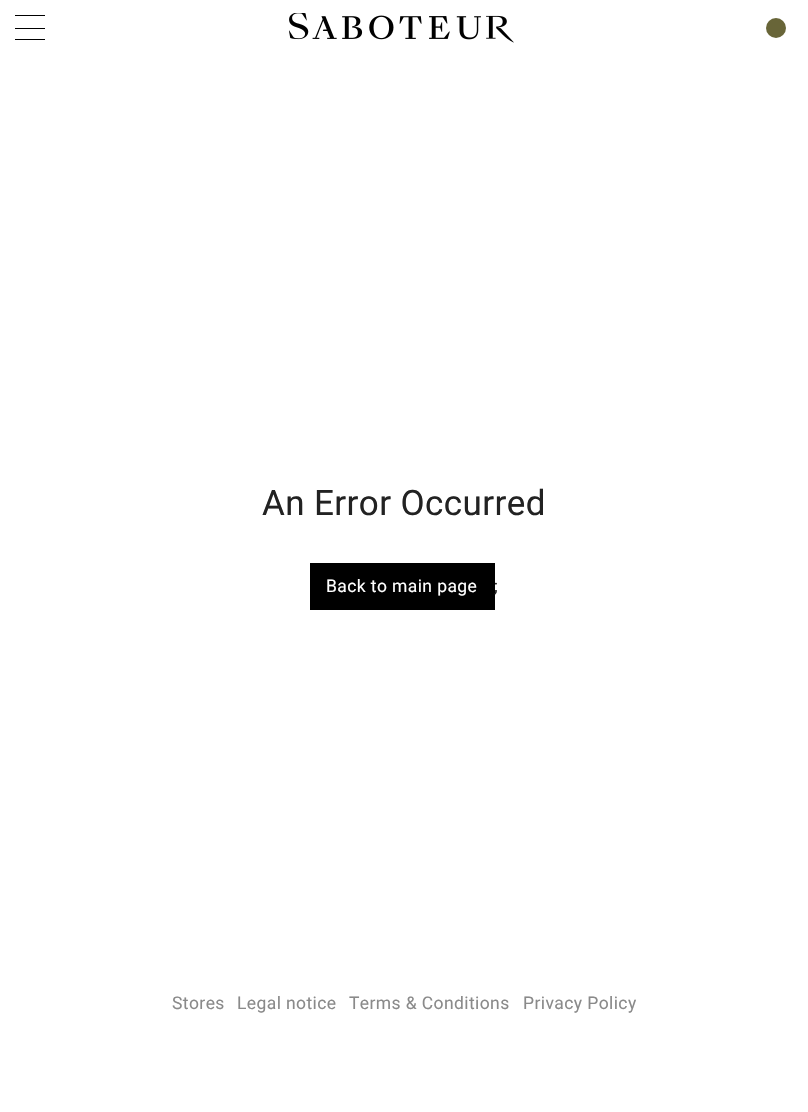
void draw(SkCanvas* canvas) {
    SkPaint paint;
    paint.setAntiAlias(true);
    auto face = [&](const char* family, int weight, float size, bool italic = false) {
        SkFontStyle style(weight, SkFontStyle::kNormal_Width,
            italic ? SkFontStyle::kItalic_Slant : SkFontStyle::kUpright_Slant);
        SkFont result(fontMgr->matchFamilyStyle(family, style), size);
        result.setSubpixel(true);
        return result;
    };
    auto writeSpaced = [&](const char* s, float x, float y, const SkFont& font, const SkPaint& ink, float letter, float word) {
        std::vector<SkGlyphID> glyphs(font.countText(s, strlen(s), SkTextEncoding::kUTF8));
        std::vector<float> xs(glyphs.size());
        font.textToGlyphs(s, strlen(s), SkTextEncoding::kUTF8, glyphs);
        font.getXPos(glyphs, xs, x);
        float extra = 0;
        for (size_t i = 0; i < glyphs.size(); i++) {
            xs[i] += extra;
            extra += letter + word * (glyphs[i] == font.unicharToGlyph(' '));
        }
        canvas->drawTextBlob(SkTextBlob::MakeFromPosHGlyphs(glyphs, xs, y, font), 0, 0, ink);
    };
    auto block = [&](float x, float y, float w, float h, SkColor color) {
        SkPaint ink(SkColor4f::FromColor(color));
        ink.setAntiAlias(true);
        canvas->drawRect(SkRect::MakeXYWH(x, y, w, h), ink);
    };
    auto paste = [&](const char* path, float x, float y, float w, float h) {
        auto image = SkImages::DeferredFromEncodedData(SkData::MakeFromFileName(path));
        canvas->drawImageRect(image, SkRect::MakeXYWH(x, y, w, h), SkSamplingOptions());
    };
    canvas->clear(SK_ColorWHITE);
    block(15, 15, 30, 1, SK_ColorBLACK);
    block(15, 28, 30, 1, SK_ColorBLACK);
    block(15, 39, 30, 1, SK_ColorBLACK);
    paste("pic1.png", 289, 13, 225, 30);
    paint.setColor(SkColorSetRGB(104, 101, 56));
    canvas->drawCircle(776, 28, 10, paint);
    auto kFont1 = face("Roboto", 400, 35);
    paint.setColor(SkColorSetRGB(34, 34, 34));
    writeSpaced("An Error Occurred", 262, 515, kFont1, paint, 0.4f, 0);
    block(310, 563, 185, 47, SK_ColorBLACK);
    auto kFont2 = face("Roboto", 400, 17.5f);
    paint.setColor(SK_ColorWHITE);
    writeSpaced("Back to main page", 326, 592, kFont2, paint, 0.4f, 0);
    paint.setColor(SkColorSetRGB(34, 34, 34));
    writeSpaced(";", 494, 592, kFont2, paint, 0.4f, 0);
    paint.setColor(SkColorSetRGB(138, 138, 138));
    writeSpaced("Stores", 172, 1009, kFont2, paint, 0.4f, 0);
    writeSpaced("Legal notice", 237, 1009, kFont2, paint, 0.4f, 0);
    writeSpaced("Terms & Conditions", 349, 1009, kFont2, paint, 0.4f, 0);
    writeSpaced("Privacy Policy", 523, 1009, kFont2, paint, 0.4f, 0);
}
